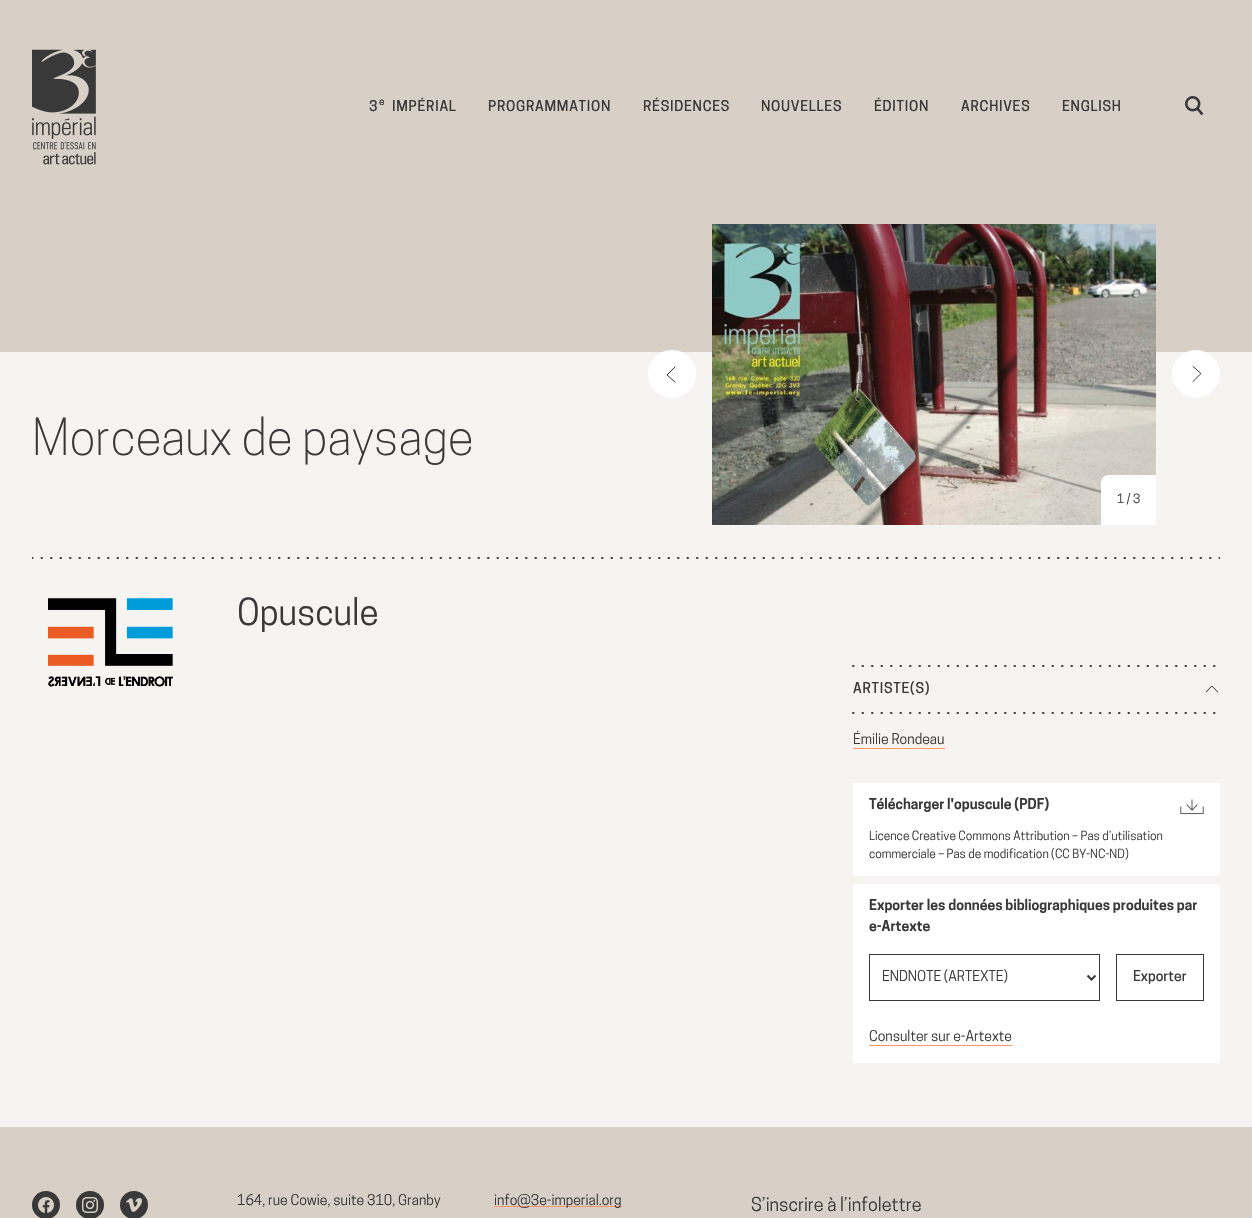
void draw(SkCanvas* canvas) {
    SkPaint paint;
    paint.setAntiAlias(true);
    auto face = [&](const char* family, int weight, float size, bool italic = false) {
        SkFontStyle style(weight, SkFontStyle::kNormal_Width,
            italic ? SkFontStyle::kItalic_Slant : SkFontStyle::kUpright_Slant);
        SkFont result(fontMgr->matchFamilyStyle(family, style), size);
        result.setSubpixel(true);
        return result;
    };
    auto write = [&](const char* s, float x, float y, const SkFont& font, SkColor color) {
        SkPaint ink(SkColor4f::FromColor(color));
        ink.setAntiAlias(true);
        canvas->drawString(s, x, y, font, ink);
    };
    auto writeSpaced = [&](const char* s, float x, float y, const SkFont& font, const SkPaint& ink, float letter, float word) {
        std::vector<SkGlyphID> glyphs(font.countText(s, strlen(s), SkTextEncoding::kUTF8));
        std::vector<float> xs(glyphs.size());
        font.textToGlyphs(s, strlen(s), SkTextEncoding::kUTF8, glyphs);
        font.getXPos(glyphs, xs, x);
        float extra = 0;
        for (size_t i = 0; i < glyphs.size(); i++) {
            xs[i] += extra;
            extra += letter + word * (glyphs[i] == font.unicharToGlyph(' '));
        }
        canvas->drawTextBlob(SkTextBlob::MakeFromPosHGlyphs(glyphs, xs, y, font), 0, 0, ink);
    };
    auto block = [&](float x, float y, float w, float h, SkColor color) {
        SkPaint ink(SkColor4f::FromColor(color));
        ink.setAntiAlias(true);
        canvas->drawRect(SkRect::MakeXYWH(x, y, w, h), ink);
    };
    auto paste = [&](const char* path, float x, float y, float w, float h) {
        auto image = SkImages::DeferredFromEncodedData(SkData::MakeFromFileName(path));
        canvas->drawImageRect(image, SkRect::MakeXYWH(x, y, w, h), SkSamplingOptions());
    };
    canvas->clear(SkColorSetRGB(216, 207, 199));
    paste("pic1.png", 32, 49, 64, 116);
    auto kFont1 = face("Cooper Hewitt", 500, 14);
    paint.setColor(SkColorSetRGB(57, 57, 57));
    writeSpaced("3", 369, 111, kFont1, paint, 0.75f, 0);
    auto kFont2 = face("Cooper Hewitt", 500, 10);
    writeSpaced("e", 379, 105, kFont2, paint, 0.75f, 0);
    writeSpaced("IMPÉRIAL", 392, 111, kFont1, paint, 0.75f, 0);
    writeSpaced("PROGRAMMATION", 488, 111, kFont1, paint, 0.75f, 0);
    writeSpaced("RÉSIDENCES", 643, 111, kFont1, paint, 0.75f, 0);
    writeSpaced("NOUVELLES", 761, 111, kFont1, paint, 0.75f, 0);
    writeSpaced("ÉDITION", 874, 111, kFont1, paint, 0.75f, 0);
    writeSpaced("ARCHIVES", 961, 111, kFont1, paint, 0.75f, 0);
    writeSpaced("ENGLISH", 1062, 111, kFont1, paint, 0.75f, 0);
    paste("pic2.png", 1185, 96, 19, 20);
    block(0, 352, 1252, 775, SkColorSetRGB(245, 244, 241));
    auto kFont3 = face("Cooper Hewitt", 300, 48);
    write("Morceaux de paysage", 32, 455, kFont3, SkColorSetRGB(57, 57, 57));
    paint.setColor(SK_ColorWHITE);
    canvas->drawCircle(672, 374, 24, paint);
    paint.setStyle(SkPaint::kStroke_Style);
    paint.setStrokeWidth(1);
    paint.setStrokeCap(SkPaint::kRound_Cap);
    paint.setStrokeJoin(SkPaint::kRound_Join);
    paint.setColor(SkColorSetRGB(57, 57, 57));
    canvas->drawPath(SkPathBuilder().moveTo(675, 367).lineTo(667, 375).lineTo(675, 382).detach(), paint);
    paint.setStyle(SkPaint::kFill_Style);
    paint.setColor(SK_ColorWHITE);
    canvas->drawCircle(1196, 374, 24, paint);
    paint.setStyle(SkPaint::kStroke_Style);
    paint.setColor(SkColorSetRGB(57, 57, 57));
    canvas->drawPath(SkPathBuilder().moveTo(1193, 381.5f).lineTo(1201, 373.5f).lineTo(1193, 366.5f).detach(), paint);
    paste("pic3.png", 712, 224, 444, 301);
    paint.setStyle(SkPaint::kFill_Style);
    paint.setColor(SK_ColorWHITE);
    canvas->drawPath(SkPathBuilder().moveTo(1109, 475).lineTo(1156, 475).lineTo(1156, 525).lineTo(1101, 525).lineTo(1101, 483).cubicTo(1101, 478.5f, 1104.5f, 475, 1109, 475).close().detach(), paint);
    auto kFont4 = face("Cooper Hewitt", 400, 12);
    write("1 / 3", 1117, 503, kFont4, SkColorSetRGB(57, 57, 57));
    canvas->save();
    canvas->clipRect(SkRect::MakeXYWH(32, 557, 1188, 2));
    paint.setStyle(SkPaint::kStroke_Style);
    paint.setStrokeWidth(2);
    paint.setColor(SkColorSetRGB(57, 57, 57));
    paint.setPathEffect(SkDashPathEffect::Make({{0.5f, 9}}, 0));
    canvas->drawPath(SkPathBuilder().moveTo(32, 558).lineTo(1220, 558).detach(), paint);
    paint.setPathEffect(nullptr);
    canvas->restore();
    paste("pic4.png", 48, 598, 125, 89);
    auto kFont5 = face("Cooper Hewitt", 400, 35);
    write("Opuscule", 237, 625, kFont5, SkColorSetRGB(57, 57, 57));
    paint.setPathEffect(SkDashPathEffect::Make({{0.5f, 9}}, 0));
    canvas->drawPath(SkPathBuilder().moveTo(853, 666).lineTo(1219.5f, 666).detach(), paint);
    paint.setPathEffect(nullptr);
    paint.setStyle(SkPaint::kFill_Style);
    writeSpaced("ARTISTE(S)", 853, 693, kFont1, paint, 0.75f, 0);
    paste("pic5.png", 1205, 686, 14, 7);
    paint.setStyle(SkPaint::kStroke_Style);
    paint.setPathEffect(SkDashPathEffect::Make({{0.5f, 9}}, 0));
    canvas->drawPath(SkPathBuilder().moveTo(853, 713).lineTo(1219.5f, 713).detach(), paint);
    paint.setPathEffect(nullptr);
    auto kFont6 = face("Cooper Hewitt", 400, 14);
    write("Émilie Rondeau", 853, 744, kFont6, SkColorSetRGB(57, 57, 57));
    block(853, 748, 92, 1, SkColorSetRGB(255, 149, 104));
    block(853, 783, 367, 93, SK_ColorWHITE);
    auto kFont7 = face("Cooper Hewitt", 600, 14);
    write("Télécharger l'opuscule (PDF)", 869, 809, kFont7, SkColorSetRGB(57, 57, 57));
    paste("pic6.png", 1180, 799, 24, 16);
    write("Licence Creative Commons Attribution – Pas d’utilisation", 869, 840, kFont4, SkColorSetRGB(57, 57, 57));
    write("commerciale – Pas de modification (CC BY-NC-ND)", 869, 858, kFont4, SkColorSetRGB(57, 57, 57));
    block(853, 884, 367, 179, SK_ColorWHITE);
    write("Exporter les données bibliographiques produites par", 869, 910, kFont7, SkColorSetRGB(57, 57, 57));
    write("e-Artexte", 869, 931, kFont7, SkColorSetRGB(57, 57, 57));
    paint.setStrokeWidth(1);
    paint.setStrokeCap(SkPaint::kButt_Cap);
    paint.setStrokeJoin(SkPaint::kMiter_Join);
    canvas->drawRect(SkRect::MakeXYWH(869.5f, 954.5f, 230, 46), paint);
    paint.setStrokeWidth(2);
    canvas->drawPath(SkPathBuilder().moveTo(1087.5f, 975.5f).lineTo(1091.5f, 979.5f).lineTo(1095.5f, 975.5f).detach(), paint);
    write("ENDNOTE (ARTEXTE)", 882, 981, kFont6, SkColorSetRGB(57, 57, 57));
    paint.setStrokeWidth(1);
    canvas->drawRect(SkRect::MakeXYWH(1116.5f, 954.5f, 87, 46), paint);
    write("Exporter", 1133, 981, kFont1, SkColorSetRGB(57, 57, 57));
    write("Consulter sur e-Artexte", 869, 1041, kFont6, SkColorSetRGB(57, 57, 57));
    block(869, 1045, 143, 1, SkColorSetRGB(255, 149, 104));
    paint.setStyle(SkPaint::kFill_Style);
    canvas->drawCircle(46, 1205, 14, paint);
    paste("pic7.png", 38, 1197, 16, 16);
    canvas->drawCircle(90, 1205, 14, paint);
    paste("pic8.png", 82, 1197, 16, 16);
    canvas->drawCircle(134, 1205, 14, paint);
    paste("pic9.png", 126, 1198, 16, 14);
    write("164, rue Cowie, suite 310, Granby", 237, 1205, kFont6, SkColorSetRGB(57, 57, 57));
    block(494, 1206, 128, 1, SkColorSetRGB(255, 149, 104));
    write("info@3e-imperial.org", 494, 1205, kFont6, SkColorSetRGB(57, 57, 57));
    auto kFont8 = face("Cooper Hewitt", 400, 18);
    write("S’inscrire à l’infolettre", 751, 1211, kFont8, SkColorSetRGB(57, 57, 57));
}
